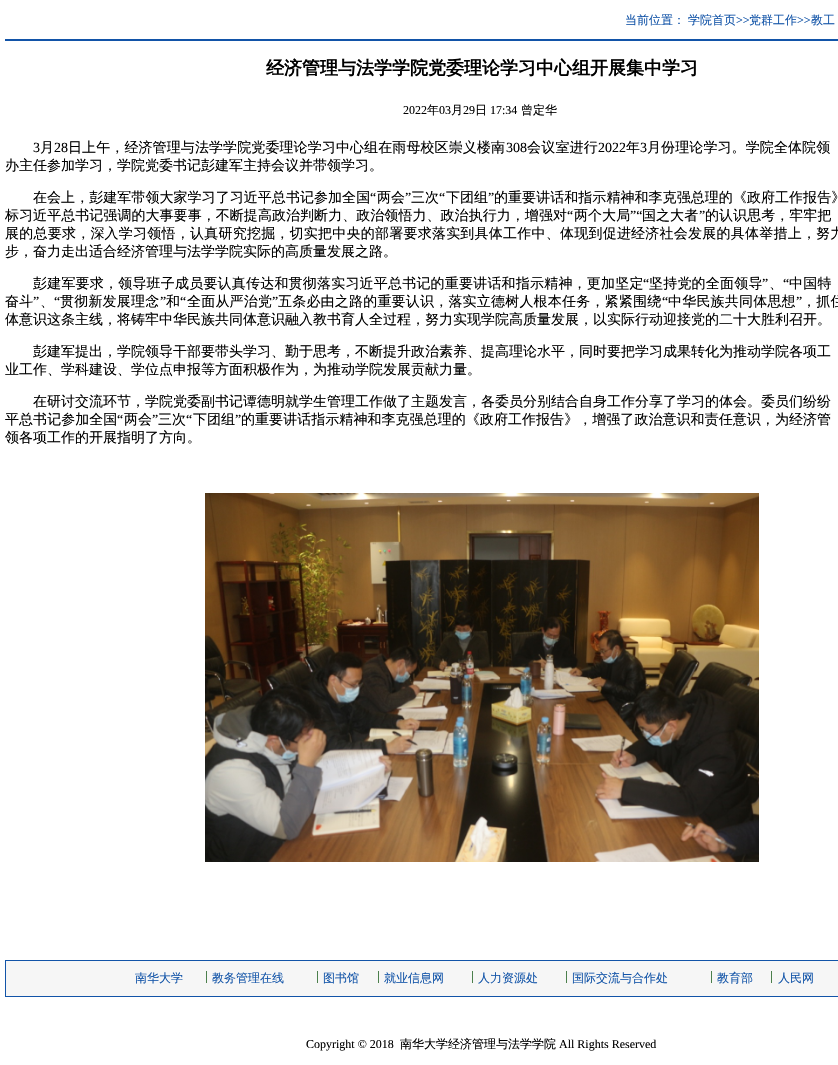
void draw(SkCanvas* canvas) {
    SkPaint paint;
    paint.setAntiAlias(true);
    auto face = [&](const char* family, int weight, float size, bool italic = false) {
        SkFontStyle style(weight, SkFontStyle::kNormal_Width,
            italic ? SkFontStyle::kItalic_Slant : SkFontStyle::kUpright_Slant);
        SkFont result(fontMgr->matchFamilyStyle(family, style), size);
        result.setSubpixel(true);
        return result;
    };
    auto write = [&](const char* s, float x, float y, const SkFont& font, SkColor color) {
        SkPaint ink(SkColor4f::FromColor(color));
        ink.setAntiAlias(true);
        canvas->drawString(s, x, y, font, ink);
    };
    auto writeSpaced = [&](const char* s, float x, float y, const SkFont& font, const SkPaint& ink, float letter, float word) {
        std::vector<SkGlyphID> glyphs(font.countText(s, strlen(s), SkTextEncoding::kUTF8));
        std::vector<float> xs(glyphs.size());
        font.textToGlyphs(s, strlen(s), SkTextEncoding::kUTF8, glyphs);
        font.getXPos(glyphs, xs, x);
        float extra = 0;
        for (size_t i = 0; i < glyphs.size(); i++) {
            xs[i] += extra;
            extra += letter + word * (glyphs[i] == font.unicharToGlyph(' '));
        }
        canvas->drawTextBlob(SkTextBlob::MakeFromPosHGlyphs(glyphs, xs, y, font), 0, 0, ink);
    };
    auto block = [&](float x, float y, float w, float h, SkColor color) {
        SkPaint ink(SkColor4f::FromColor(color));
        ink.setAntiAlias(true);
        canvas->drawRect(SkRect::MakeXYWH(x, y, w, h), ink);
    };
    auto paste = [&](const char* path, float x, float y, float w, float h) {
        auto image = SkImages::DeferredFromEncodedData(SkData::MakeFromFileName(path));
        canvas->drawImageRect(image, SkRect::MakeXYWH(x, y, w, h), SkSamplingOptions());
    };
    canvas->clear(SK_ColorWHITE);
    auto kFont1 = face("WenQuanYi Zen Hei", 500, 12);
    write("当前位置：", 625, 24, kFont1, SkColorSetRGB(18, 84, 168));
    write("学院首页", 688, 24, kFont1, SkColorSetRGB(18, 84, 168));
    auto kFont2 = face("Liberation Serif", 400, 12);
    write(">>", 736, 24, kFont2, SkColorSetRGB(18, 84, 168));
    write("党群工作", 749, 24, kFont1, SkColorSetRGB(18, 84, 168));
    write(">>", 797, 24, kFont2, SkColorSetRGB(18, 84, 168));
    write("教工", 811, 24, kFont1, SkColorSetRGB(18, 84, 168));
    block(5, 39, 833, 2, SkColorSetRGB(18, 84, 168));
    auto kFont3 = face("WenQuanYi Zen Hei", 700, 18);
    write("经济管理与法学学院党委理论学习中心组开展集中学习", 266, 74, kFont3, SK_ColorBLACK);
    write("2022", 403, 114, kFont2, SK_ColorBLACK);
    write("年", 427, 114, kFont1, SK_ColorBLACK);
    write("03", 439, 114, kFont2, SK_ColorBLACK);
    write("月", 451, 114, kFont1, SK_ColorBLACK);
    write("29", 463, 114, kFont2, SK_ColorBLACK);
    write("日", 475, 114, kFont1, SK_ColorBLACK);
    write("17:34", 490, 114, kFont2, SK_ColorBLACK);
    write("曾定华", 521, 114, kFont1, SK_ColorBLACK);
    auto kFont4 = face("Liberation Serif", 400, 14);
    write("3", 33, 152, kFont4, SK_ColorBLACK);
    auto kFont5 = face("WenQuanYi Zen Hei", 500, 14);
    write("月", 40, 152, kFont5, SK_ColorBLACK);
    write("28", 54, 152, kFont4, SK_ColorBLACK);
    paint.setColor(SK_ColorBLACK);
    writeSpaced("日上午，经济管理与法学学院党委理论学习中心组在雨母校区崇义楼南", 68, 152, kFont5, paint, 0.1f, 0);
    write("308", 506, 152, kFont4, SK_ColorBLACK);
    writeSpaced("会议室进行", 527, 152, kFont5, paint, 0.2f, 0);
    write("2022", 598, 152, kFont4, SK_ColorBLACK);
    write("年", 626, 152, kFont5, SK_ColorBLACK);
    write("3", 640, 152, kFont4, SK_ColorBLACK);
    writeSpaced("月份理论学习。学院全体院领", 647, 152, kFont5, paint, 0.1f, 0);
    write("办主任参加学习，学院党委书记彭建军主持会议并带领学习。", 5, 170, kFont5, SK_ColorBLACK);
    writeSpaced("在会上，彭建军带领大家学习了习近平总书记参加全国", 33, 202, kFont5, paint, 0.05f, 0);
    writeSpaced("“", 370, 202, kFont4, paint, 0.05f, 0);
    writeSpaced("两会", 377, 202, kFont5, paint, 0.05f, 0);
    writeSpaced("”", 405, 202, kFont4, paint, 0.05f, 0);
    writeSpaced("三次", 411, 202, kFont5, paint, 0.05f, 0);
    writeSpaced("“", 439, 202, kFont4, paint, 0.05f, 0);
    writeSpaced("下团组", 446, 202, kFont5, paint, 0.05f, 0);
    writeSpaced("”", 488, 202, kFont4, paint, 0.05f, 0);
    writeSpaced("的重要讲话和指示精神和李克强总理的《政府工作报告》", 494, 202, kFont5, paint, 0.05f, 0);
    writeSpaced("标习近平总书记强调的大事要事，不断提高政治判断力、政治领悟力、政治执行力，增强对", 5, 220, kFont5, paint, 0.05f, 0);
    writeSpaced("“", 567, 220, kFont4, paint, 0.05f, 0);
    writeSpaced("两个大局", 574, 220, kFont5, paint, 0.05f, 0);
    writeSpaced("”“", 630, 220, kFont4, paint, 0.05f, 0);
    writeSpaced("国之大者", 642, 220, kFont5, paint, 0.05f, 0);
    writeSpaced("”", 699, 220, kFont4, paint, 0.05f, 0);
    writeSpaced("的认识思考，牢牢把", 705, 220, kFont5, paint, 0.05f, 0);
    writeSpaced("展的总要求，深入学习领悟，认真研究挖掘，切实把中央的部署要求落实到具体工作中、体现到促进经济社会发展的具体举措上，努力", 5, 238, kFont5, paint, 0.23f, 0);
    write("步，奋力走出适合经济管理与法学学院实际的高质量发展之路。", 5, 256, kFont5, SK_ColorBLACK);
    writeSpaced("彭建军要求，领导班子成员要认真传达和贯彻落实习近平总书记的重要讲话和指示精神，更加坚定", 33, 288, kFont5, paint, 0.2f, 0);
    writeSpaced("“", 643, 288, kFont4, paint, 0.2f, 0);
    writeSpaced("坚持党的全面领导", 649, 288, kFont5, paint, 0.2f, 0);
    writeSpaced("”", 762, 288, kFont4, paint, 0.2f, 0);
    writeSpaced("“", 783, 288, kFont4, paint, 0.2f, 0);
    writeSpaced("中国特", 789, 288, kFont5, paint, 0.2f, 0);
    writeSpaced("、", 769, 288, kFont5, paint, 0.2f, 0);
    writeSpaced("奋斗", 5, 306, kFont5, paint, 0.2f, 0);
    writeSpaced("”", 33, 306, kFont4, paint, 0.2f, 0);
    writeSpaced("“", 54, 306, kFont4, paint, 0.2f, 0);
    writeSpaced("贯彻新发展理念", 60, 306, kFont5, paint, 0.2f, 0);
    writeSpaced("”", 160, 306, kFont4, paint, 0.2f, 0);
    writeSpaced("和", 166, 306, kFont5, paint, 0.2f, 0);
    writeSpaced("“", 180, 306, kFont4, paint, 0.2f, 0);
    writeSpaced("全面从严治党", 187, 306, kFont5, paint, 0.2f, 0);
    writeSpaced("”", 272, 306, kFont4, paint, 0.2f, 0);
    writeSpaced("五条必由之路的重要认识，落实立德树人根本任务，紧紧围绕", 278, 306, kFont5, paint, 0.2f, 0);
    writeSpaced("“", 662, 306, kFont4, paint, 0.2f, 0);
    writeSpaced("中华民族共同体思想", 668, 306, kFont5, paint, 0.2f, 0);
    writeSpaced("”", 796, 306, kFont4, paint, 0.2f, 0);
    writeSpaced("，抓住", 802, 306, kFont5, paint, 0.2f, 0);
    writeSpaced("、", 40, 306, kFont5, paint, 0.2f, 0);
    write("体意识这条主线，将铸牢中华民族共同体意识融入教书育人全过程，努力实现学院高质量发展，以实际行动迎接党的二十大胜利召开。", 5, 324, kFont5, SK_ColorBLACK);
    write("彭建军提出，学院领导干部要带头学习、勤于思考，不断提升政治素养、提高理论水平，同时要把学习成果转化为推动学院各项工", 33, 356, kFont5, SK_ColorBLACK);
    write("业工作、学科建设、学位点申报等方面积极作为，为推动学院发展贡献力量。", 5, 374, kFont5, SK_ColorBLACK);
    write("在研讨交流环节，学院党委副书记谭德明就学生管理工作做了主题发言，各委员分别结合自身工作分享了学习的体会。委员们纷纷", 33, 406, kFont5, SK_ColorBLACK);
    writeSpaced("平总书记参加全国", 5, 424, kFont5, paint, 0.05f, 0);
    writeSpaced("“", 117, 424, kFont4, paint, 0.05f, 0);
    writeSpaced("两会", 124, 424, kFont5, paint, 0.05f, 0);
    writeSpaced("”", 152, 424, kFont4, paint, 0.05f, 0);
    writeSpaced("三次", 158, 424, kFont5, paint, 0.05f, 0);
    writeSpaced("“", 186, 424, kFont4, paint, 0.05f, 0);
    writeSpaced("下团组", 193, 424, kFont5, paint, 0.05f, 0);
    writeSpaced("”", 235, 424, kFont4, paint, 0.05f, 0);
    writeSpaced("的重要讲话指示精神和李克强总理的《政府工作报告》，增强了政治意识和责任意识，为经济管", 241, 424, kFont5, paint, 0.05f, 0);
    write("领各项工作的开展指明了方向。", 5, 442, kFont5, SK_ColorBLACK);
    paste("pic1.png", 205, 493, 554, 369);
    paint.setColor(SkColorSetRGB(246, 246, 246));
    canvas->drawRect(SkRect::MakeXYWH(5.5f, 960.5f, 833, 36), paint);
    paint.setStyle(SkPaint::kStroke_Style);
    paint.setStrokeWidth(1);
    paint.setColor(SkColorSetRGB(18, 84, 168));
    canvas->drawRect(SkRect::MakeXYWH(5.5f, 960.5f, 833, 36), paint);
    write("南华大学", 135, 982, kFont1, SkColorSetRGB(18, 84, 168));
    paste("pic2.png", 206, 971, 1, 12);
    write("教务管理在线", 212, 982, kFont1, SkColorSetRGB(18, 84, 168));
    paste("pic2.png", 317, 971, 1, 12);
    write("图书馆", 323, 982, kFont1, SkColorSetRGB(18, 84, 168));
    paste("pic2.png", 378, 971, 1, 12);
    write("就业信息网", 384, 982, kFont1, SkColorSetRGB(18, 84, 168));
    paste("pic2.png", 472, 971, 1, 12);
    write("人力资源处", 478, 982, kFont1, SkColorSetRGB(18, 84, 168));
    paste("pic2.png", 566, 971, 1, 12);
    write("国际交流与合作处", 572, 982, kFont1, SkColorSetRGB(18, 84, 168));
    paste("pic2.png", 711, 971, 1, 12);
    write("教育部", 717, 982, kFont1, SkColorSetRGB(18, 84, 168));
    paste("pic2.png", 771, 971, 1, 12);
    write("人民网", 778, 982, kFont1, SkColorSetRGB(18, 84, 168));
    write("Copyright © 2018", 306, 1048, kFont2, SK_ColorBLACK);
    write("南华大学经济管理与法学学院", 400, 1048, kFont1, SK_ColorBLACK);
    write("All Rights Reserved", 559, 1048, kFont2, SK_ColorBLACK);
}
